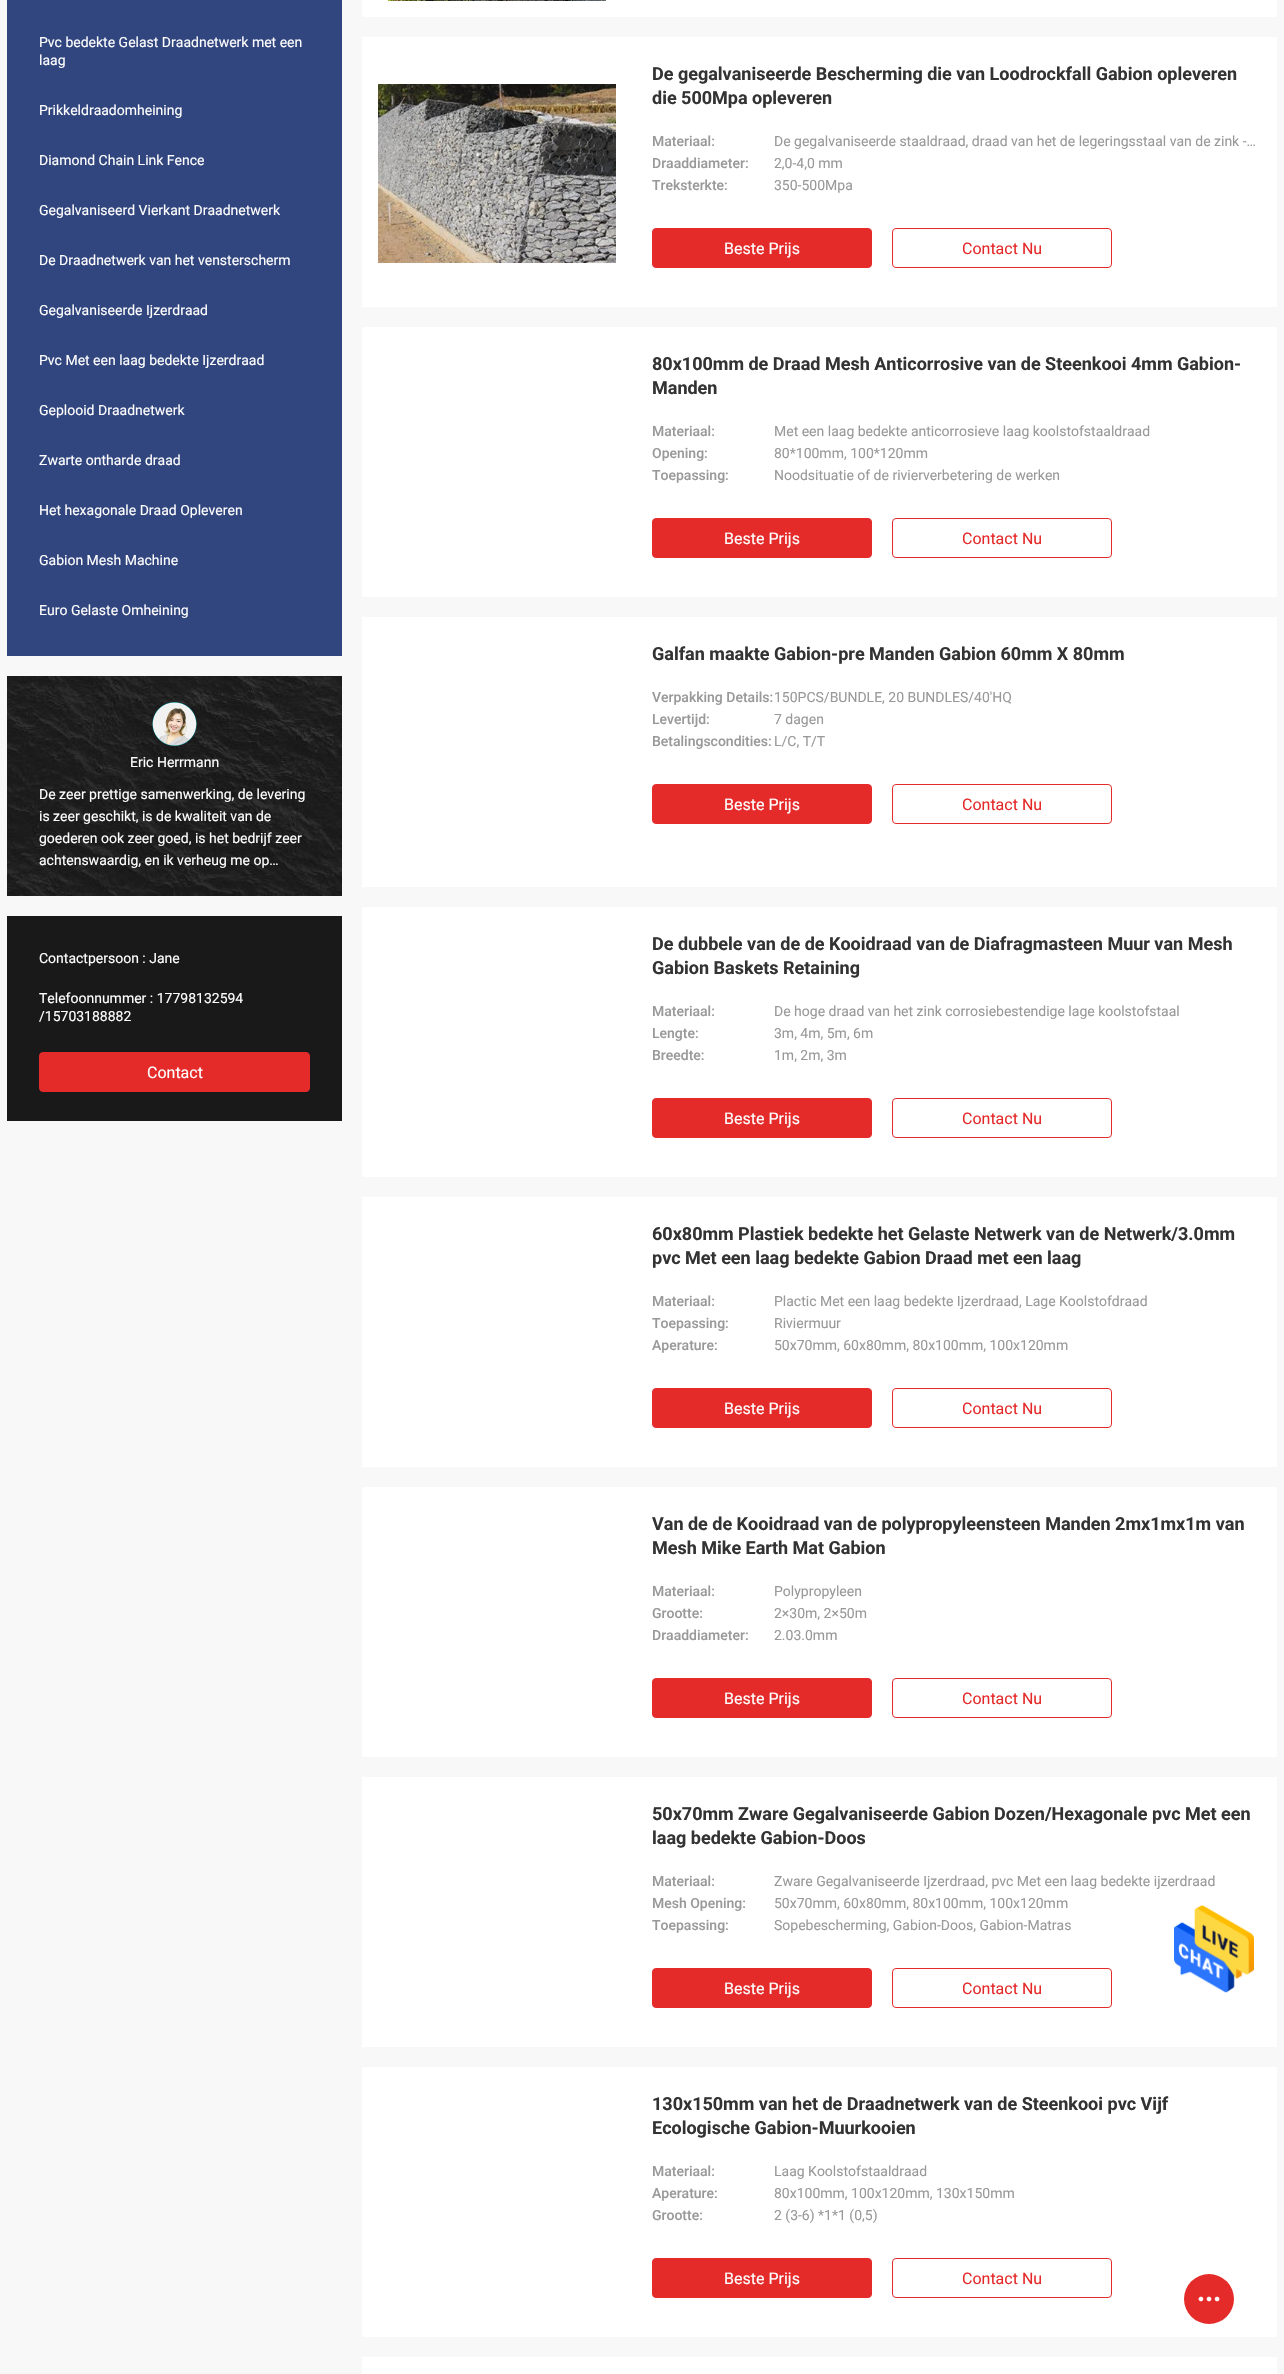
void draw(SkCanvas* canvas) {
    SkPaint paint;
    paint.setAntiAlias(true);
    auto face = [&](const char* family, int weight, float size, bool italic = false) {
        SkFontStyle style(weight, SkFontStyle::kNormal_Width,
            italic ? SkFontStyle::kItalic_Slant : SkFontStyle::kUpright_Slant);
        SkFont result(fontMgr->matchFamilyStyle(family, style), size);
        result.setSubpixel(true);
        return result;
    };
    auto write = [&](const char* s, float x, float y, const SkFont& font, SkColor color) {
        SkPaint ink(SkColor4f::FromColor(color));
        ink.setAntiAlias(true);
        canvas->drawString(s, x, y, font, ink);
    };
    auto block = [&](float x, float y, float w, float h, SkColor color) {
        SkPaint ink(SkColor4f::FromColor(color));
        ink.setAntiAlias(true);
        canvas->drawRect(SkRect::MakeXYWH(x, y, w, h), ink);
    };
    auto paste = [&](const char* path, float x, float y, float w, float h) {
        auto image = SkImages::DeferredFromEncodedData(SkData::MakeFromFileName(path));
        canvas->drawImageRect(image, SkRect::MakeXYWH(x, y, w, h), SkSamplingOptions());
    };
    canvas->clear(SkColorSetRGB(248, 248, 248));
    block(7, 0, 335, 656, SkColorSetRGB(49, 69, 126));
    auto kFont1 = face("Roboto", 400, 14);
    write("Pvc bedekte Gelast Draadnetwerk met een", 39, 47, kFont1, SK_ColorWHITE);
    write("laag", 39, 65, kFont1, SK_ColorWHITE);
    write("Prikkeldraadomheining", 39, 115, kFont1, SK_ColorWHITE);
    write("Diamond Chain Link Fence", 39, 165, kFont1, SK_ColorWHITE);
    write("Gegalvaniseerd Vierkant Draadnetwerk", 39, 215, kFont1, SK_ColorWHITE);
    write("De Draadnetwerk van het vensterscherm", 39, 265, kFont1, SK_ColorWHITE);
    write("Gegalvaniseerde Ijzerdraad", 39, 315, kFont1, SK_ColorWHITE);
    write("Pvc Met een laag bedekte Ijzerdraad", 39, 365, kFont1, SK_ColorWHITE);
    write("Geplooid Draadnetwerk", 39, 415, kFont1, SK_ColorWHITE);
    write("Zwarte ontharde draad", 39, 465, kFont1, SK_ColorWHITE);
    write("Het hexagonale Draad Opleveren", 39, 515, kFont1, SK_ColorWHITE);
    write("Gabion Mesh Machine", 39, 565, kFont1, SK_ColorWHITE);
    write("Euro Gelaste Omheining", 39, 615, kFont1, SK_ColorWHITE);
    paste("pic1.png", 7, 676, 335, 220);
    paste("pic2.png", 152, 702, 45, 44);
    write("Eric Herrmann", 130, 767, kFont1, SK_ColorWHITE);
    write("De zeer prettige samenwerking, de levering", 39, 799, kFont1, SK_ColorWHITE);
    write("is zeer geschikt, is de kwaliteit van de", 39, 821, kFont1, SK_ColorWHITE);
    write("goederen ook zeer goed, is het bedrijf zeer", 39, 843, kFont1, SK_ColorWHITE);
    write("achtenswaardig, en ik verheug me op…", 39, 865, kFont1, SK_ColorWHITE);
    block(7, 916, 335, 205, SkColorSetRGB(26, 25, 25));
    write("Contactpersoon : Jane", 39, 963, kFont1, SK_ColorWHITE);
    write("Telefoonnummer : 17798132594", 39, 1003, kFont1, SK_ColorWHITE);
    write("/15703188882", 39, 1021, kFont1, SK_ColorWHITE);
    paint.setColor(SkColorSetRGB(229, 42, 42));
    canvas->drawRoundRect(SkRect::MakeXYWH(39.5f, 1052.5f, 270, 39), 3.5f, 3.5f, paint);
    paint.setStyle(SkPaint::kStroke_Style);
    paint.setStrokeWidth(1);
    canvas->drawRoundRect(SkRect::MakeXYWH(39.5f, 1052.5f, 270, 39), 3.5f, 3.5f, paint);
    auto kFont2 = face("Roboto", 400, 16);
    write("Contact", 147, 1078, kFont2, SK_ColorWHITE);
    block(362, 0, 915, 17, SK_ColorWHITE);
    paste("pic3.png", 388, 0, 218, 1);
    block(362, 37, 915, 270, SK_ColorWHITE);
    paste("pic4.png", 378, 84, 238, 179);
    auto kFont3 = face("Roboto", 700, 18);
    write("De gegalvaniseerde Bescherming die van Loodrockfall Gabion opleveren", 652, 80, kFont3, SkColorSetRGB(51, 51, 51));
    write("die 500Mpa opleveren", 652, 104, kFont3, SkColorSetRGB(51, 51, 51));
    auto kFont4 = face("Roboto", 500, 14);
    write("Materiaal:", 652, 146, kFont4, SkColorSetRGB(153, 153, 153));
    write("De gegalvaniseerde staaldraad, draad van het de legeringsstaal van de zink -…", 774, 146, kFont1, SkColorSetRGB(153, 153, 153));
    write("Draaddiameter:", 652, 168, kFont4, SkColorSetRGB(153, 153, 153));
    write("2,0-4,0 mm", 774, 168, kFont1, SkColorSetRGB(153, 153, 153));
    write("Treksterkte:", 652, 190, kFont4, SkColorSetRGB(153, 153, 153));
    write("350-500Mpa", 774, 190, kFont1, SkColorSetRGB(153, 153, 153));
    paint.setStyle(SkPaint::kFill_Style);
    canvas->drawRoundRect(SkRect::MakeXYWH(652.5f, 228.5f, 219, 39), 3.5f, 3.5f, paint);
    paint.setStyle(SkPaint::kStroke_Style);
    canvas->drawRoundRect(SkRect::MakeXYWH(652.5f, 228.5f, 219, 39), 3.5f, 3.5f, paint);
    write("Beste Prijs", 724, 254, kFont2, SK_ColorWHITE);
    canvas->drawRoundRect(SkRect::MakeXYWH(892.5f, 228.5f, 219, 39), 3.5f, 3.5f, paint);
    write("Contact Nu", 962, 254, kFont2, SkColorSetRGB(229, 42, 42));
    block(362, 327, 915, 270, SK_ColorWHITE);
    write("80x100mm de Draad Mesh Anticorrosive van de Steenkooi 4mm Gabion-", 652, 370, kFont3, SkColorSetRGB(51, 51, 51));
    write("Manden", 652, 394, kFont3, SkColorSetRGB(51, 51, 51));
    write("Materiaal:", 652, 436, kFont4, SkColorSetRGB(153, 153, 153));
    write("Met een laag bedekte anticorrosieve laag koolstofstaaldraad", 774, 436, kFont1, SkColorSetRGB(153, 153, 153));
    write("Opening:", 652, 458, kFont4, SkColorSetRGB(153, 153, 153));
    write("80*100mm, 100*120mm", 774, 458, kFont1, SkColorSetRGB(153, 153, 153));
    write("Toepassing:", 652, 480, kFont4, SkColorSetRGB(153, 153, 153));
    write("Noodsituatie of de rivierverbetering de werken", 774, 480, kFont1, SkColorSetRGB(153, 153, 153));
    paint.setStyle(SkPaint::kFill_Style);
    canvas->drawRoundRect(SkRect::MakeXYWH(652.5f, 518.5f, 219, 39), 3.5f, 3.5f, paint);
    paint.setStyle(SkPaint::kStroke_Style);
    canvas->drawRoundRect(SkRect::MakeXYWH(652.5f, 518.5f, 219, 39), 3.5f, 3.5f, paint);
    write("Beste Prijs", 724, 544, kFont2, SK_ColorWHITE);
    canvas->drawRoundRect(SkRect::MakeXYWH(892.5f, 518.5f, 219, 39), 3.5f, 3.5f, paint);
    write("Contact Nu", 962, 544, kFont2, SkColorSetRGB(229, 42, 42));
    block(362, 617, 915, 270, SK_ColorWHITE);
    write("Galfan maakte Gabion-pre Manden Gabion 60mm X 80mm", 652, 660, kFont3, SkColorSetRGB(51, 51, 51));
    write("Verpakking Details:", 652, 702, kFont4, SkColorSetRGB(153, 153, 153));
    write("150PCS/BUNDLE, 20 BUNDLES/40'HQ", 774, 702, kFont1, SkColorSetRGB(153, 153, 153));
    write("Levertijd:", 652, 724, kFont4, SkColorSetRGB(153, 153, 153));
    write("7 dagen", 774, 724, kFont1, SkColorSetRGB(153, 153, 153));
    write("Betalingscondities:", 652, 746, kFont4, SkColorSetRGB(153, 153, 153));
    write("L/C, T/T", 774, 746, kFont1, SkColorSetRGB(153, 153, 153));
    paint.setStyle(SkPaint::kFill_Style);
    canvas->drawRoundRect(SkRect::MakeXYWH(652.5f, 784.5f, 219, 39), 3.5f, 3.5f, paint);
    paint.setStyle(SkPaint::kStroke_Style);
    canvas->drawRoundRect(SkRect::MakeXYWH(652.5f, 784.5f, 219, 39), 3.5f, 3.5f, paint);
    write("Beste Prijs", 724, 810, kFont2, SK_ColorWHITE);
    canvas->drawRoundRect(SkRect::MakeXYWH(892.5f, 784.5f, 219, 39), 3.5f, 3.5f, paint);
    write("Contact Nu", 962, 810, kFont2, SkColorSetRGB(229, 42, 42));
    block(362, 907, 915, 270, SK_ColorWHITE);
    write("De dubbele van de de Kooidraad van de Diafragmasteen Muur van Mesh", 652, 950, kFont3, SkColorSetRGB(51, 51, 51));
    write("Gabion Baskets Retaining", 652, 974, kFont3, SkColorSetRGB(51, 51, 51));
    write("Materiaal:", 652, 1016, kFont4, SkColorSetRGB(153, 153, 153));
    write("De hoge draad van het zink corrosiebestendige lage koolstofstaal", 774, 1016, kFont1, SkColorSetRGB(153, 153, 153));
    write("Lengte:", 652, 1038, kFont4, SkColorSetRGB(153, 153, 153));
    write("3m, 4m, 5m, 6m", 774, 1038, kFont1, SkColorSetRGB(153, 153, 153));
    write("Breedte:", 652, 1060, kFont4, SkColorSetRGB(153, 153, 153));
    write("1m, 2m, 3m", 774, 1060, kFont1, SkColorSetRGB(153, 153, 153));
    paint.setStyle(SkPaint::kFill_Style);
    canvas->drawRoundRect(SkRect::MakeXYWH(652.5f, 1098.5f, 219, 39), 3.5f, 3.5f, paint);
    paint.setStyle(SkPaint::kStroke_Style);
    canvas->drawRoundRect(SkRect::MakeXYWH(652.5f, 1098.5f, 219, 39), 3.5f, 3.5f, paint);
    write("Beste Prijs", 724, 1124, kFont2, SK_ColorWHITE);
    canvas->drawRoundRect(SkRect::MakeXYWH(892.5f, 1098.5f, 219, 39), 3.5f, 3.5f, paint);
    write("Contact Nu", 962, 1124, kFont2, SkColorSetRGB(229, 42, 42));
    block(362, 1197, 915, 270, SK_ColorWHITE);
    write("60x80mm Plastiek bedekte het Gelaste Netwerk van de Netwerk/3.0mm", 652, 1240, kFont3, SkColorSetRGB(51, 51, 51));
    write("pvc Met een laag bedekte Gabion Draad met een laag", 652, 1264, kFont3, SkColorSetRGB(51, 51, 51));
    write("Materiaal:", 652, 1306, kFont4, SkColorSetRGB(153, 153, 153));
    write("Plactic Met een laag bedekte Ijzerdraad, Lage Koolstofdraad", 774, 1306, kFont1, SkColorSetRGB(153, 153, 153));
    write("Toepassing:", 652, 1328, kFont4, SkColorSetRGB(153, 153, 153));
    write("Riviermuur", 774, 1328, kFont1, SkColorSetRGB(153, 153, 153));
    write("Aperature:", 652, 1350, kFont4, SkColorSetRGB(153, 153, 153));
    write("50x70mm, 60x80mm, 80x100mm, 100x120mm", 774, 1350, kFont1, SkColorSetRGB(153, 153, 153));
    paint.setStyle(SkPaint::kFill_Style);
    canvas->drawRoundRect(SkRect::MakeXYWH(652.5f, 1388.5f, 219, 39), 3.5f, 3.5f, paint);
    paint.setStyle(SkPaint::kStroke_Style);
    canvas->drawRoundRect(SkRect::MakeXYWH(652.5f, 1388.5f, 219, 39), 3.5f, 3.5f, paint);
    write("Beste Prijs", 724, 1414, kFont2, SK_ColorWHITE);
    canvas->drawRoundRect(SkRect::MakeXYWH(892.5f, 1388.5f, 219, 39), 3.5f, 3.5f, paint);
    write("Contact Nu", 962, 1414, kFont2, SkColorSetRGB(229, 42, 42));
    block(362, 1487, 915, 270, SK_ColorWHITE);
    write("Van de de Kooidraad van de polypropyleensteen Manden 2mx1mx1m van", 652, 1530, kFont3, SkColorSetRGB(51, 51, 51));
    write("Mesh Mike Earth Mat Gabion", 652, 1554, kFont3, SkColorSetRGB(51, 51, 51));
    write("Materiaal:", 652, 1596, kFont4, SkColorSetRGB(153, 153, 153));
    write("Polypropyleen", 774, 1596, kFont1, SkColorSetRGB(153, 153, 153));
    write("Grootte:", 652, 1618, kFont4, SkColorSetRGB(153, 153, 153));
    write("2×30m, 2×50m", 774, 1618, kFont1, SkColorSetRGB(153, 153, 153));
    write("Draaddiameter:", 652, 1640, kFont4, SkColorSetRGB(153, 153, 153));
    write("2.03.0mm", 774, 1640, kFont1, SkColorSetRGB(153, 153, 153));
    paint.setStyle(SkPaint::kFill_Style);
    canvas->drawRoundRect(SkRect::MakeXYWH(652.5f, 1678.5f, 219, 39), 3.5f, 3.5f, paint);
    paint.setStyle(SkPaint::kStroke_Style);
    canvas->drawRoundRect(SkRect::MakeXYWH(652.5f, 1678.5f, 219, 39), 3.5f, 3.5f, paint);
    write("Beste Prijs", 724, 1704, kFont2, SK_ColorWHITE);
    canvas->drawRoundRect(SkRect::MakeXYWH(892.5f, 1678.5f, 219, 39), 3.5f, 3.5f, paint);
    write("Contact Nu", 962, 1704, kFont2, SkColorSetRGB(229, 42, 42));
    block(362, 1777, 915, 270, SK_ColorWHITE);
    write("50x70mm Zware Gegalvaniseerde Gabion Dozen/Hexagonale pvc Met een", 652, 1820, kFont3, SkColorSetRGB(51, 51, 51));
    write("laag bedekte Gabion-Doos", 652, 1844, kFont3, SkColorSetRGB(51, 51, 51));
    write("Materiaal:", 652, 1886, kFont4, SkColorSetRGB(153, 153, 153));
    write("Zware Gegalvaniseerde Ijzerdraad, pvc Met een laag bedekte ijzerdraad", 774, 1886, kFont1, SkColorSetRGB(153, 153, 153));
    write("Mesh Opening:", 652, 1908, kFont4, SkColorSetRGB(153, 153, 153));
    write("50x70mm, 60x80mm, 80x100mm, 100x120mm", 774, 1908, kFont1, SkColorSetRGB(153, 153, 153));
    write("Toepassing:", 652, 1930, kFont4, SkColorSetRGB(153, 153, 153));
    write("Sopebescherming, Gabion-Doos, Gabion-Matras", 774, 1930, kFont1, SkColorSetRGB(153, 153, 153));
    paint.setStyle(SkPaint::kFill_Style);
    canvas->drawRoundRect(SkRect::MakeXYWH(652.5f, 1968.5f, 219, 39), 3.5f, 3.5f, paint);
    paint.setStyle(SkPaint::kStroke_Style);
    canvas->drawRoundRect(SkRect::MakeXYWH(652.5f, 1968.5f, 219, 39), 3.5f, 3.5f, paint);
    write("Beste Prijs", 724, 1994, kFont2, SK_ColorWHITE);
    canvas->drawRoundRect(SkRect::MakeXYWH(892.5f, 1968.5f, 219, 39), 3.5f, 3.5f, paint);
    write("Contact Nu", 962, 1994, kFont2, SkColorSetRGB(229, 42, 42));
    block(362, 2067, 915, 270, SK_ColorWHITE);
    write("130x150mm van het de Draadnetwerk van de Steenkooi pvc Vijf", 652, 2110, kFont3, SkColorSetRGB(51, 51, 51));
    write("Ecologische Gabion-Muurkooien", 652, 2134, kFont3, SkColorSetRGB(51, 51, 51));
    write("Materiaal:", 652, 2176, kFont4, SkColorSetRGB(153, 153, 153));
    write("Laag Koolstofstaaldraad", 774, 2176, kFont1, SkColorSetRGB(153, 153, 153));
    write("Aperature:", 652, 2198, kFont4, SkColorSetRGB(153, 153, 153));
    write("80x100mm, 100x120mm, 130x150mm", 774, 2198, kFont1, SkColorSetRGB(153, 153, 153));
    write("Grootte:", 652, 2220, kFont4, SkColorSetRGB(153, 153, 153));
    write("2 (3-6) *1*1 (0,5)", 774, 2220, kFont1, SkColorSetRGB(153, 153, 153));
    paint.setStyle(SkPaint::kFill_Style);
    canvas->drawRoundRect(SkRect::MakeXYWH(652.5f, 2258.5f, 219, 39), 3.5f, 3.5f, paint);
    paint.setStyle(SkPaint::kStroke_Style);
    canvas->drawRoundRect(SkRect::MakeXYWH(652.5f, 2258.5f, 219, 39), 3.5f, 3.5f, paint);
    write("Beste Prijs", 724, 2284, kFont2, SK_ColorWHITE);
    canvas->drawRoundRect(SkRect::MakeXYWH(892.5f, 2258.5f, 219, 39), 3.5f, 3.5f, paint);
    write("Contact Nu", 962, 2284, kFont2, SkColorSetRGB(229, 42, 42));
    block(362, 2357, 915, 17, SK_ColorWHITE);
    paste("pic5.png", 1174, 1905, 80, 88);
    paint.setStyle(SkPaint::kFill_Style);
    canvas->drawCircle(1209, 2299, 25, paint);
    paste("pic6.png", 1198, 2296, 22, 6);
}
